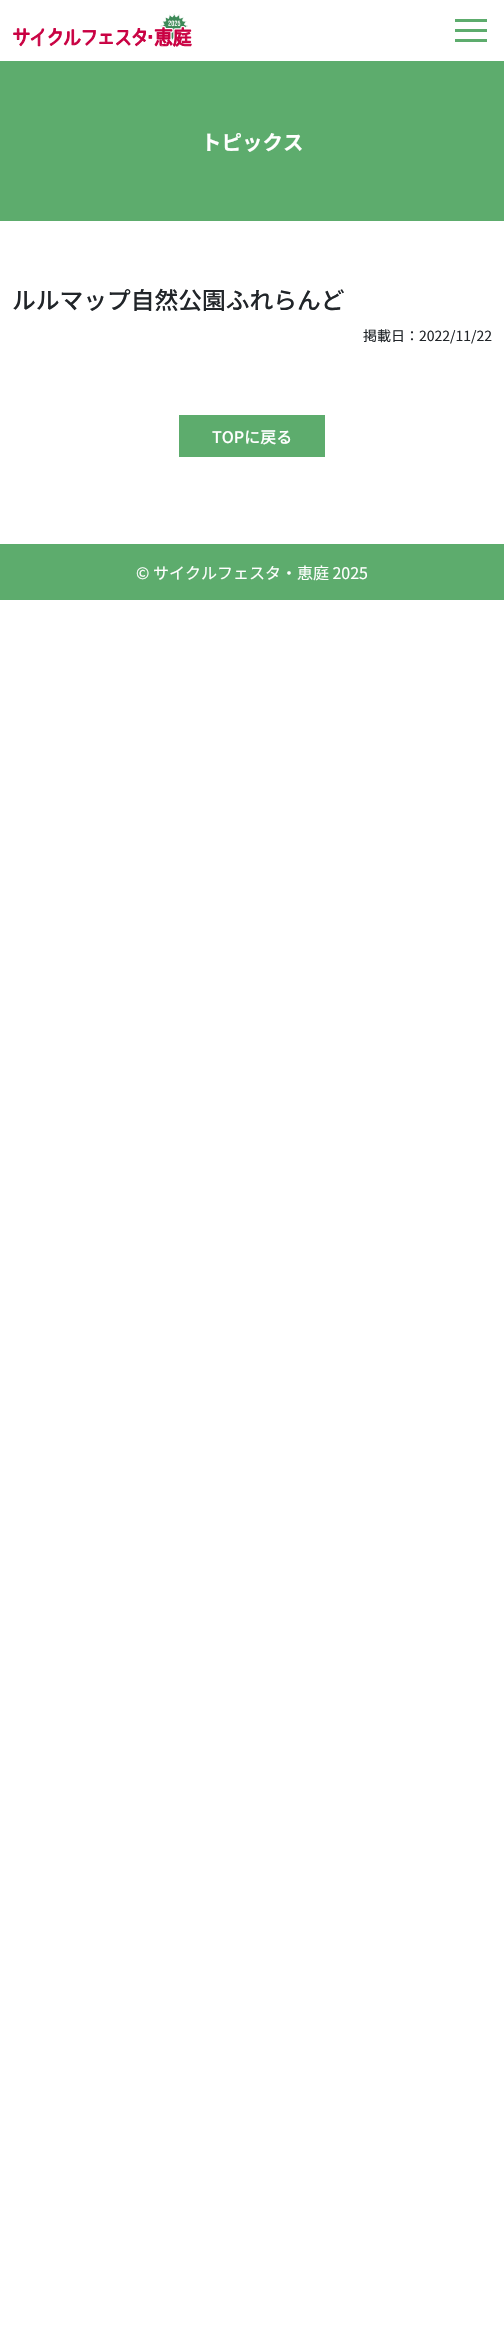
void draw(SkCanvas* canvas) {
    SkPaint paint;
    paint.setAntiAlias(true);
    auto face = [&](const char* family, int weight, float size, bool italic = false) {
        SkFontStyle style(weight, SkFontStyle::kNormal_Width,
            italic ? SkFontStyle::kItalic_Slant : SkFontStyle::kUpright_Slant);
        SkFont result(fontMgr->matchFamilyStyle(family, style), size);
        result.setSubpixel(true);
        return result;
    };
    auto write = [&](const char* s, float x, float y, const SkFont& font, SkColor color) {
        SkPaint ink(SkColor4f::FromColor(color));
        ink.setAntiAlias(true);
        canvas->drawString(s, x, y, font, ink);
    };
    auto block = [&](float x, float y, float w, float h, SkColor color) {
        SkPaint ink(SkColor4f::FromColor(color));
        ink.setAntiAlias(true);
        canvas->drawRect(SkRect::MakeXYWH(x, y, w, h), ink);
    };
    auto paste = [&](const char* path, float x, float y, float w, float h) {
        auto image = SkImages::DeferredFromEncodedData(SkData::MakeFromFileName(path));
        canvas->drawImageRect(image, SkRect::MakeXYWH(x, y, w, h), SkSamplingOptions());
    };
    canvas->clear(SK_ColorWHITE);
    paste("pic1.png", 13, 13, 179, 34);
    block(455, 19, 32, 3, SkColorSetRGB(93, 172, 109));
    block(455, 29, 32, 3, SkColorSetRGB(93, 172, 109));
    block(455, 39, 32, 3, SkColorSetRGB(93, 172, 109));
    block(0, 61, 504, 160, SkColorSetRGB(93, 172, 109));
    auto kFont1 = face("Noto Sans JP", 700, 20.5f);
    write("トピックス", 201, 150, kFont1, SK_ColorWHITE);
    auto kFont2 = face("Noto Sans JP", 500, 23.75f);
    write("ルルマップ自然公園ふれらんど", 12, 309, kFont2, SkColorSetRGB(33, 37, 41));
    auto kFont3 = face("Noto Sans JP", 400, 14);
    write("掲載日：2022/11/22", 363, 341, kFont3, SkColorSetRGB(33, 37, 41));
    block(179, 415, 146, 42, SkColorSetRGB(93, 172, 109));
    auto kFont4 = face("Noto Sans JP", 500, 16);
    write("TOPに戻る", 212, 443, kFont4, SK_ColorWHITE);
    block(0, 544, 504, 56, SkColorSetRGB(93, 172, 109));
    auto kFont5 = face("Noto Sans JP", 400, 16);
    write("© サイクルフェスタ・恵庭 2025", 136, 579, kFont5, SK_ColorWHITE);
}
